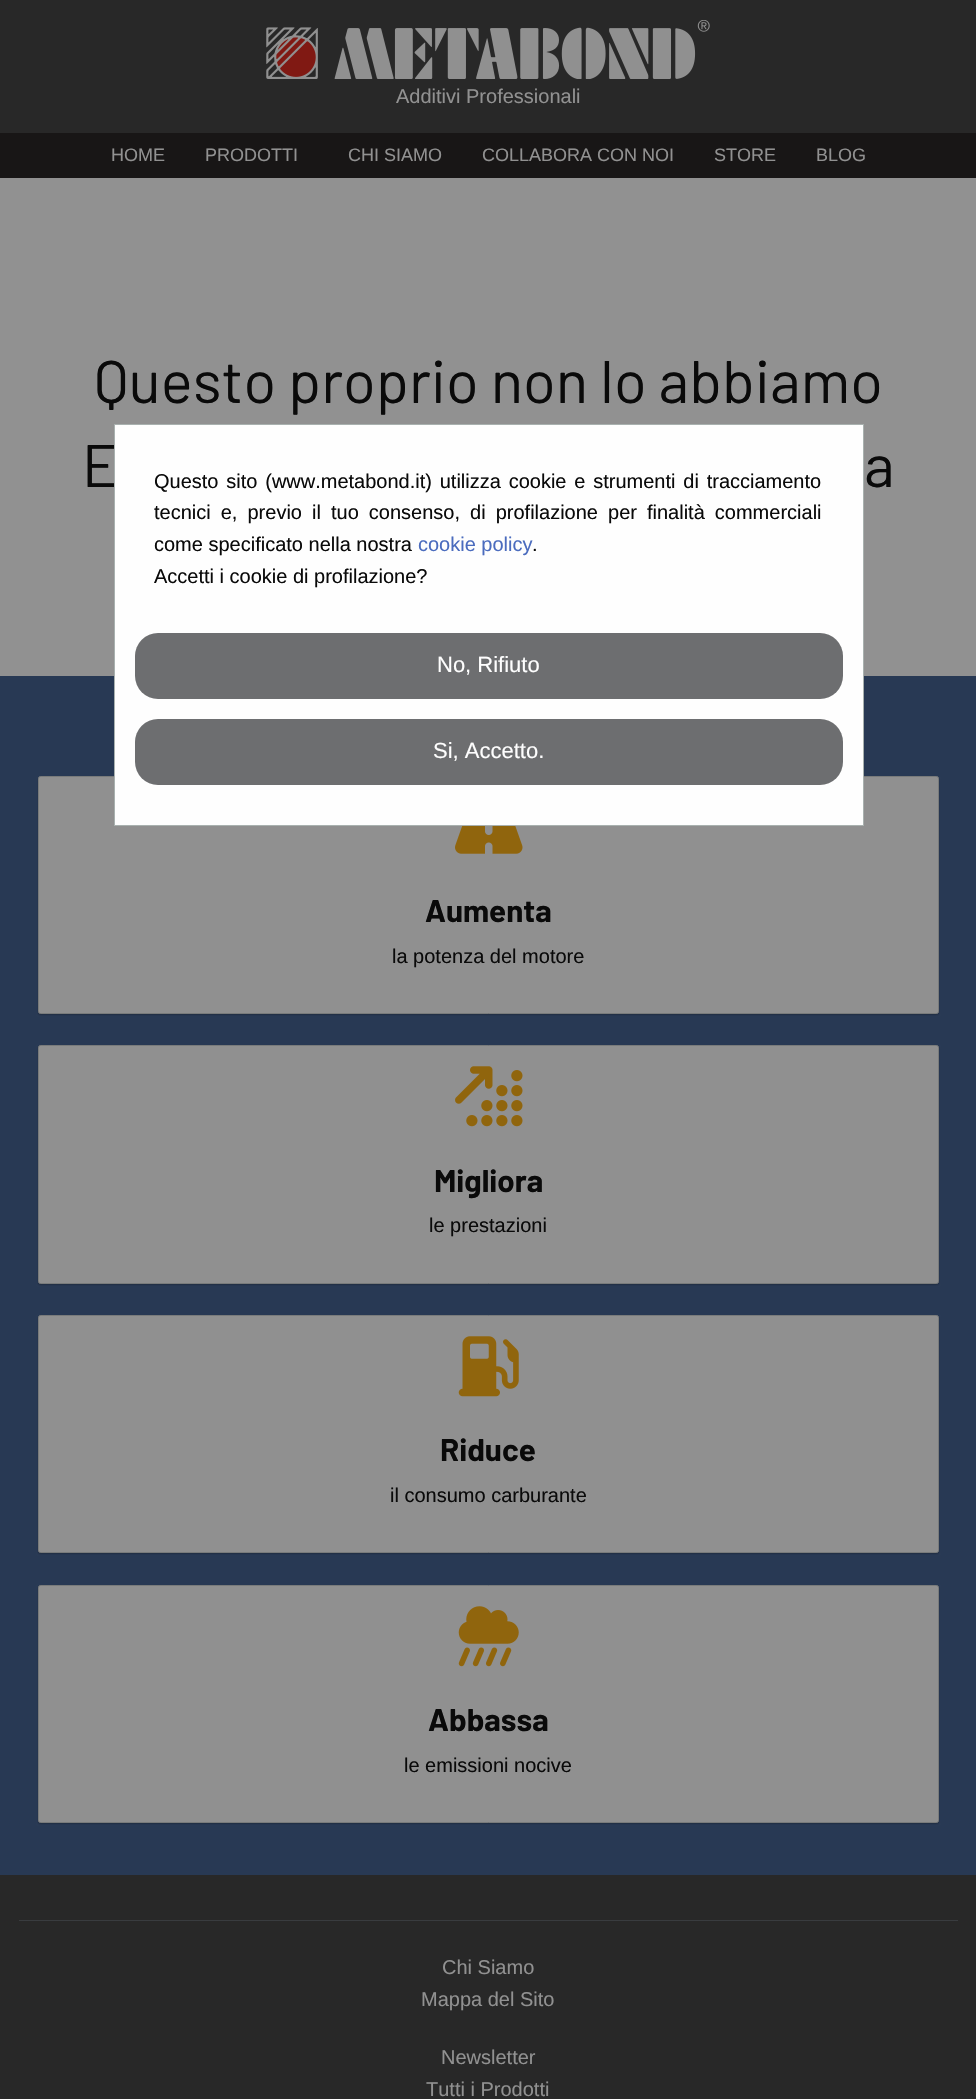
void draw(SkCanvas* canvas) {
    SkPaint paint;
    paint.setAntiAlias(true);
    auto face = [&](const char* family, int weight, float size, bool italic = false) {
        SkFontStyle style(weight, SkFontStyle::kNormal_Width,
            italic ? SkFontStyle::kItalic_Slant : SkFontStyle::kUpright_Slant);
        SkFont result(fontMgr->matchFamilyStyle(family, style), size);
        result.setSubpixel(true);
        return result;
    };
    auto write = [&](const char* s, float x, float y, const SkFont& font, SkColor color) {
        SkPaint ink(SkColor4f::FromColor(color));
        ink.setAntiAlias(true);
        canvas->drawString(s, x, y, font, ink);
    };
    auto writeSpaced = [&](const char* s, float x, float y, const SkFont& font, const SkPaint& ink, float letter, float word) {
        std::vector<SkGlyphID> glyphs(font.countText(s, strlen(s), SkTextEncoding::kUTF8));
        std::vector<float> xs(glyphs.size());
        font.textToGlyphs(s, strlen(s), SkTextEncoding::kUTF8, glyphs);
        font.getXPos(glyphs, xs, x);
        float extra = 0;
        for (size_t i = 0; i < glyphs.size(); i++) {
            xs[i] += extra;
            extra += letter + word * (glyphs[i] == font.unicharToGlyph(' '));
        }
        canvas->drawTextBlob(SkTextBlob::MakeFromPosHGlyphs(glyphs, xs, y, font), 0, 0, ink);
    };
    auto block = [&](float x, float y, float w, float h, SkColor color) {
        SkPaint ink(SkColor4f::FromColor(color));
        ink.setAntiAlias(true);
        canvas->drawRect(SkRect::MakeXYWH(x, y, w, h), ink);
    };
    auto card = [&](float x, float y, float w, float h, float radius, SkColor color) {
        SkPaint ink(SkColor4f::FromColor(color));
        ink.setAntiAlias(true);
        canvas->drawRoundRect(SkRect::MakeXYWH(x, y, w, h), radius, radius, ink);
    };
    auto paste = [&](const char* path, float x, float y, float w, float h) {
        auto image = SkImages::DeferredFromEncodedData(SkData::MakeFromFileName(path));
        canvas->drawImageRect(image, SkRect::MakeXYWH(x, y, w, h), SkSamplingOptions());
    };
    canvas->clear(SkColorSetRGB(145, 145, 145));
    block(0, 0, 976, 133, SkColorSetRGB(40, 40, 40));
    paste("pic1.png", 266, 20, 444, 59);
    auto kFont1 = face("Liberation Sans", 400, 20);
    write("Additivi Professionali", 396, 103, kFont1, SkColorSetRGB(145, 145, 145));
    block(0, 133, 976, 45, SkColorSetRGB(24, 22, 22));
    auto kFont2 = face("Liberation Sans", 400, 18);
    write("HOME", 111, 161, kFont2, SkColorSetRGB(145, 145, 145));
    write("PRODOTTI", 205, 161, kFont2, SkColorSetRGB(145, 145, 145));
    write("CHI SIAMO", 348, 161, kFont2, SkColorSetRGB(145, 145, 145));
    write("COLLABORA CON NOI", 482, 161, kFont2, SkColorSetRGB(145, 145, 145));
    write("STORE", 714, 161, kFont2, SkColorSetRGB(145, 145, 145));
    write("BLOG", 816, 161, kFont2, SkColorSetRGB(145, 145, 145));
    auto kFont3 = face("Barlow", 400, 60);
    write("Questo proprio non lo abbiamo", 94, 403, kFont3, SkColorSetRGB(10, 10, 10));
    write("E", 82, 487, kFont3, SkColorSetRGB(10, 10, 10));
    write("a", 864, 487, kFont3, SkColorSetRGB(10, 10, 10));
    block(0, 676, 976, 1199, SkColorSetRGB(40, 57, 84));
    paint.setColor(SkColorSetARGB(61, 5, 5, 5));
    paint.setMaskFilter(SkMaskFilter::MakeBlur(kNormal_SkBlurStyle, 1));
    canvas->drawRoundRect(SkRect::MakeXYWH(38, 778, 901, 237), 2.5f, 2.5f, paint);
    paint.setMaskFilter(nullptr);
    paint.setColor(SkColorSetRGB(144, 144, 144));
    canvas->drawRoundRect(SkRect::MakeXYWH(38.5f, 776.5f, 900, 237), 2, 2, paint);
    paint.setStyle(SkPaint::kStroke_Style);
    paint.setStrokeWidth(1);
    paint.setColor(SkColorSetRGB(121, 123, 123));
    canvas->drawRoundRect(SkRect::MakeXYWH(38.5f, 776.5f, 900, 237), 2, 2, paint);
    paint.setStyle(SkPaint::kFill_Style);
    paint.setColor(SkColorSetRGB(254, 254, 254));
    canvas->drawRect(SkRect::MakeXYWH(114.5f, 424.5f, 749, 401), paint);
    paint.setStyle(SkPaint::kStroke_Style);
    paint.setColor(SkColorSetRGB(169, 177, 175));
    canvas->drawRect(SkRect::MakeXYWH(114.5f, 424.5f, 749, 401), paint);
    paint.setStyle(SkPaint::kFill_Style);
    paint.setColor(SkColorSetRGB(10, 10, 10));
    writeSpaced("Questo sito (www.metabond.it) utilizza cookie e strumenti di tracciamento", 154, 488, kFont1, paint, 0, 2.25f);
    writeSpaced("tecnici e, previo il tuo consenso, di profilazione per finalità commerciali", 154, 519, kFont1, paint, 0, 4.5f);
    write("come specificato nella nostra", 154, 551, kFont1, SkColorSetRGB(10, 10, 10));
    write("cookie policy", 418, 551, kFont1, SkColorSetRGB(75, 108, 190));
    write(".", 532, 551, kFont1, SkColorSetRGB(10, 10, 10));
    write("Accetti i cookie di profilazione?", 154, 583, kFont1, SkColorSetRGB(10, 10, 10));
    card(135, 633, 708, 66, 23, SkColorSetRGB(109, 110, 112));
    auto kFont4 = face("Liberation Sans", 400, 22);
    write("No, Rifiuto", 437, 672, kFont4, SkColorSetRGB(254, 254, 254));
    card(135, 719, 708, 66, 23, SkColorSetRGB(109, 110, 112));
    write("Si, Accetto.", 433, 758, kFont4, SkColorSetRGB(254, 254, 254));
    paste("pic2.png", 455, 826, 68, 28);
    auto kFont5 = face("Barlow", 700, 31.25f);
    write("Aumenta", 425, 922, kFont5, SkColorSetRGB(10, 10, 10));
    write("la potenza del motore", 392, 963, kFont1, SkColorSetRGB(10, 10, 10));
    paint.setColor(SkColorSetARGB(61, 5, 5, 5));
    paint.setMaskFilter(SkMaskFilter::MakeBlur(kNormal_SkBlurStyle, 1));
    canvas->drawRoundRect(SkRect::MakeXYWH(38, 1046, 901, 239), 2.5f, 2.5f, paint);
    paint.setMaskFilter(nullptr);
    paint.setColor(SkColorSetRGB(144, 144, 144));
    canvas->drawRoundRect(SkRect::MakeXYWH(38.5f, 1045.5f, 900, 238), 2, 2, paint);
    paint.setStyle(SkPaint::kStroke_Style);
    paint.setColor(SkColorSetRGB(121, 123, 123));
    canvas->drawRoundRect(SkRect::MakeXYWH(38.5f, 1045.5f, 900, 238), 2, 2, paint);
    paste("pic3.png", 455, 1066, 68, 61);
    write("Migliora", 434, 1192, kFont5, SkColorSetRGB(10, 10, 10));
    write("le prestazioni", 429, 1232, kFont1, SkColorSetRGB(10, 10, 10));
    paint.setStyle(SkPaint::kFill_Style);
    paint.setColor(SkColorSetARGB(61, 5, 5, 5));
    paint.setMaskFilter(SkMaskFilter::MakeBlur(kNormal_SkBlurStyle, 1));
    canvas->drawRoundRect(SkRect::MakeXYWH(38, 1316, 901, 238), 2.5f, 2.5f, paint);
    paint.setMaskFilter(nullptr);
    paint.setColor(SkColorSetRGB(144, 144, 144));
    canvas->drawRoundRect(SkRect::MakeXYWH(38.5f, 1315.5f, 900, 237), 2, 2, paint);
    paint.setStyle(SkPaint::kStroke_Style);
    paint.setColor(SkColorSetRGB(121, 123, 123));
    canvas->drawRoundRect(SkRect::MakeXYWH(38.5f, 1315.5f, 900, 237), 2, 2, paint);
    paste("pic4.png", 458, 1336, 61, 61);
    write("Riduce", 440, 1461, kFont5, SkColorSetRGB(10, 10, 10));
    write("il consumo carburante", 390, 1502, kFont1, SkColorSetRGB(10, 10, 10));
    paint.setStyle(SkPaint::kFill_Style);
    paint.setColor(SkColorSetARGB(61, 5, 5, 5));
    paint.setMaskFilter(SkMaskFilter::MakeBlur(kNormal_SkBlurStyle, 1));
    canvas->drawRoundRect(SkRect::MakeXYWH(38, 1586, 901, 238), 2.5f, 2.5f, paint);
    paint.setMaskFilter(nullptr);
    paint.setColor(SkColorSetRGB(144, 144, 144));
    canvas->drawRoundRect(SkRect::MakeXYWH(38.5f, 1585.5f, 900, 237), 2, 2, paint);
    paint.setStyle(SkPaint::kStroke_Style);
    paint.setColor(SkColorSetRGB(121, 123, 123));
    canvas->drawRoundRect(SkRect::MakeXYWH(38.5f, 1585.5f, 900, 237), 2, 2, paint);
    paste("pic5.png", 458, 1606, 61, 61);
    write("Abbassa", 428, 1731, kFont5, SkColorSetRGB(10, 10, 10));
    write("le emissioni nocive", 404, 1772, kFont1, SkColorSetRGB(10, 10, 10));
    block(0, 1875, 976, 224, SkColorSetRGB(40, 40, 40));
    block(19, 1920, 939, 1, SkColorSetRGB(57, 60, 63));
    write("Chi Siamo", 442, 1974, kFont1, SkColorSetRGB(145, 145, 145));
    write("Mappa del Sito", 421, 2006, kFont1, SkColorSetRGB(145, 145, 145));
    write("Newsletter", 441, 2064, kFont1, SkColorSetRGB(145, 145, 145));
    write("Tutti i Prodotti", 426, 2096, kFont1, SkColorSetRGB(145, 145, 145));
}
